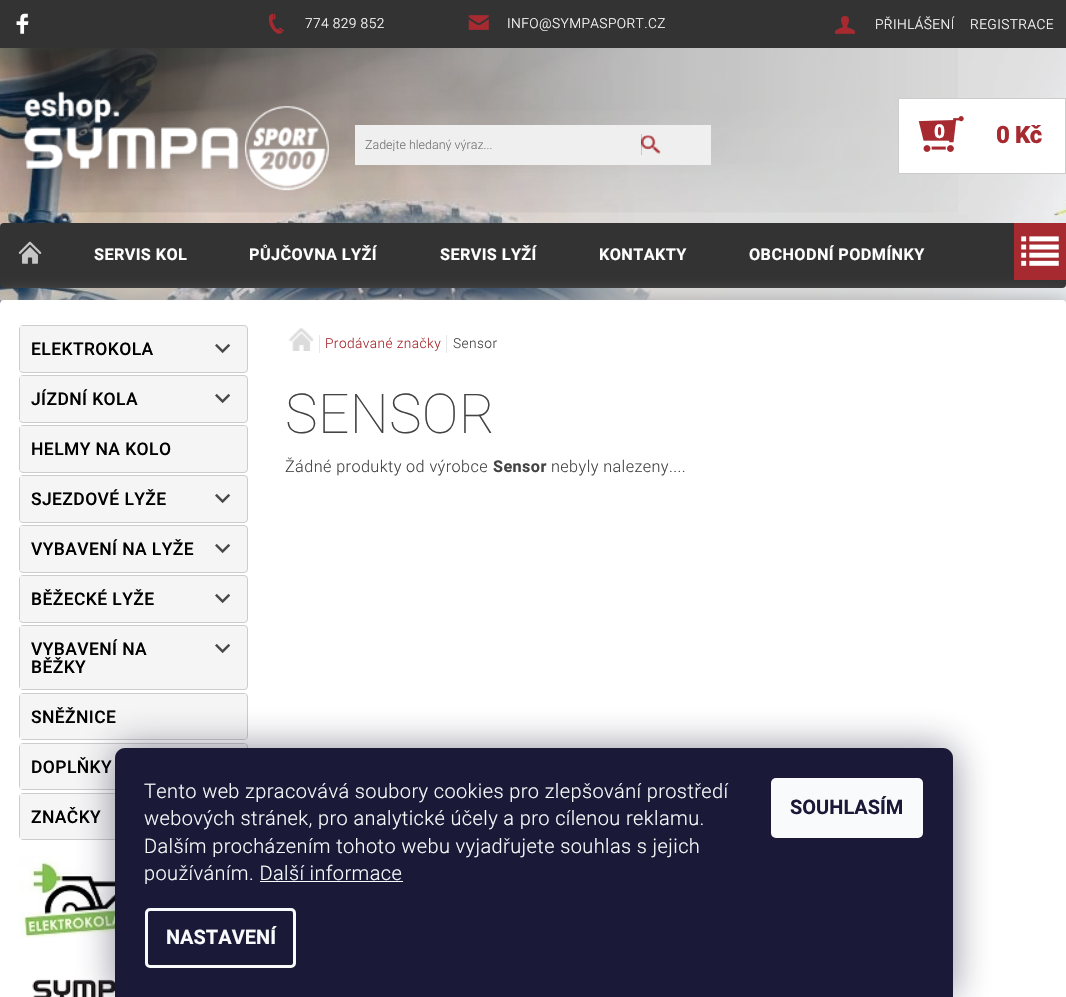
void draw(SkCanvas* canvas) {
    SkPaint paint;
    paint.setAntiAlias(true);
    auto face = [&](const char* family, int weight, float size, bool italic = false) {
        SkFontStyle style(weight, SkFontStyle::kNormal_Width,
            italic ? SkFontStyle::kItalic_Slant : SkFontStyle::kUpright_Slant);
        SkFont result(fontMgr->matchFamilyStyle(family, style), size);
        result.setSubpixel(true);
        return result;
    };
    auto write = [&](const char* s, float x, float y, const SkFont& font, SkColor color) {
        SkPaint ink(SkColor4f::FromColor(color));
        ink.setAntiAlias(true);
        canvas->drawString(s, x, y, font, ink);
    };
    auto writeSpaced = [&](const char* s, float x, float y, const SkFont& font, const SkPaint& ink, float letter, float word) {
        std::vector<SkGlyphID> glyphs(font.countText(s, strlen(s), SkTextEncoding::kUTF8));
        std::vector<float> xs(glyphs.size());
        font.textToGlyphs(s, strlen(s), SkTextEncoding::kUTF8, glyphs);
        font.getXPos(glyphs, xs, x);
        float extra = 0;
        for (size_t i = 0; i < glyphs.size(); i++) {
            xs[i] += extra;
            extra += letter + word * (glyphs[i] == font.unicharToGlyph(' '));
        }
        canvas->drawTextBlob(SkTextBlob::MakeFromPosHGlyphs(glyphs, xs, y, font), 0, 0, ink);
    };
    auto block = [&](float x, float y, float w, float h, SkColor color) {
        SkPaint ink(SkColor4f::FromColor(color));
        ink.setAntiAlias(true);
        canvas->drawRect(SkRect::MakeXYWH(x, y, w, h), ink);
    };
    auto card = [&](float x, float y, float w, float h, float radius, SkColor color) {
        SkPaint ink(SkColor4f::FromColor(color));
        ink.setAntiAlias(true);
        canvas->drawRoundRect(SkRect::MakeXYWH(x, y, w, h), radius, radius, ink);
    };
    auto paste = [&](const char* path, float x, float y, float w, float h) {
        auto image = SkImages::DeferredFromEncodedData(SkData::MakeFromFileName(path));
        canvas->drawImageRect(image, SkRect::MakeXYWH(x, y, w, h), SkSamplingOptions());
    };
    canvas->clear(SK_ColorWHITE);
    paste("pic1.png", 0, 48, 1066, 256);
    paste("pic2.png", 0, 48, 958, 165);
    block(0, 0, 1066, 48, SkColorSetRGB(51, 51, 51));
    paste("pic3.png", 16, 13, 13, 21);
    paste("pic4.png", 268, 13, 16, 21);
    auto kFont1 = face("Roboto", 300, 13.75f);
    paint.setColor(SK_ColorWHITE);
    writeSpaced("774 829 852", 305, 28, kFont1, paint, 0.4f, 0);
    paste("pic5.png", 468, 15, 21, 15);
    writeSpaced("INFO@SYMPASPORT.CZ", 507, 28, kFont1, paint, 0.4f, 0);
    paste("pic6.png", 835, 16, 20, 18);
    writeSpaced("PŘIHLÁŠENÍ", 875, 29, kFont1, paint, 0.4f, 0);
    writeSpaced("REGISTRACE", 970, 29, kFont1, paint, 0.4f, 0);
    paste("pic7.png", 23, 91, 306, 100);
    block(355, 125, 356, 40, SkColorSetRGB(239, 239, 239));
    canvas->save();
    canvas->clipRect(SkRect::MakeXYWH(365, 138, 213, 13));
    auto kFont2 = face("Roboto", 300, 12.5f);
    write("Zadejte hledaný výraz...", 365, 149, kFont2, SkColorSetRGB(117, 117, 117));
    canvas->restore();
    block(641, 134, 20, 21, SkColorSetRGB(167, 42, 48));
    paste("pic8.png", 641, 134, 20, 21);
    canvas->drawRect(SkRect::MakeXYWH(898.5f, 98.5f, 167, 75), paint);
    paint.setStyle(SkPaint::kStroke_Style);
    paint.setStrokeWidth(1);
    paint.setColor(SkColorSetRGB(204, 204, 204));
    canvas->drawRect(SkRect::MakeXYWH(898.5f, 98.5f, 167, 75), paint);
    paste("pic9.png", 918, 116, 46, 36);
    auto kFont3 = face("Roboto", 900, 19);
    paint.setStyle(SkPaint::kFill_Style);
    paint.setColor(SK_ColorWHITE);
    writeSpaced("0", 934, 138, kFont3, paint, -0.5f, 0);
    auto kFont4 = face("Roboto", 900, 24);
    paint.setColor(SkColorSetRGB(167, 42, 48));
    writeSpaced("0 Kč", 996, 143, kFont4, paint, -0.5f, 0);
    card(0, 223, 1066, 65, 4, SkColorSetRGB(51, 51, 51));
    paste("pic10.png", 18, 241, 24, 23);
    auto kFont5 = face("Roboto", 700, 16.25f);
    paint.setColor(SK_ColorWHITE);
    writeSpaced("SERVIS KOL", 94, 260, kFont5, paint, 0.4f, 0);
    writeSpaced("PŮJČOVNA LYŽÍ", 249, 260, kFont5, paint, 0.4f, 0);
    writeSpaced("SERVIS LYŽÍ", 440, 260, kFont5, paint, 0.4f, 0);
    writeSpaced("KONTAKTY", 599, 260, kFont5, paint, 0.4f, 0);
    writeSpaced("OBCHODNÍ PODMÍNKY", 749, 260, kFont5, paint, 0.4f, 0);
    paint.setColor(SkColorSetRGB(170, 170, 170));
    paint.setMaskFilter(SkMaskFilter::MakeBlur(kNormal_SkBlurStyle, 9.5f));
    canvas->drawRoundRect(SkRect::MakeXYWH(0, 300, 1066, 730), 4, 4, paint);
    paint.setMaskFilter(nullptr);
    block(1014, 223, 52, 57, SkColorSetRGB(167, 42, 48));
    paste("pic11.png", 1021, 236, 38, 30);
    card(0, 300, 1066, 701, 4, SK_ColorWHITE);
    paint.setColor(SkColorSetRGB(245, 245, 245));
    canvas->drawRoundRect(SkRect::MakeXYWH(19.5f, 325.5f, 228, 47), 3.5f, 3.5f, paint);
    paint.setStyle(SkPaint::kStroke_Style);
    paint.setColor(SkColorSetRGB(204, 204, 204));
    canvas->drawRoundRect(SkRect::MakeXYWH(19.5f, 325.5f, 228, 47), 3.5f, 3.5f, paint);
    block(20, 326, 3, 45, SkColorSetRGB(245, 245, 245));
    auto kFont6 = face("Roboto", 500, 17.5f);
    paint.setStyle(SkPaint::kFill_Style);
    paint.setColor(SK_ColorBLACK);
    writeSpaced("ELEKTROKOLA", 31, 355, kFont6, paint, 0.4f, 0);
    paste("pic12.png", 215, 343, 16, 11);
    paint.setColor(SkColorSetRGB(245, 245, 245));
    canvas->drawRoundRect(SkRect::MakeXYWH(19.5f, 375.5f, 228, 47), 3.5f, 3.5f, paint);
    paint.setStyle(SkPaint::kStroke_Style);
    paint.setColor(SkColorSetRGB(204, 204, 204));
    canvas->drawRoundRect(SkRect::MakeXYWH(19.5f, 375.5f, 228, 47), 3.5f, 3.5f, paint);
    block(20, 376, 3, 45, SkColorSetRGB(245, 245, 245));
    paint.setStyle(SkPaint::kFill_Style);
    paint.setColor(SK_ColorBLACK);
    writeSpaced("JÍZDNÍ KOLA", 31, 405, kFont6, paint, 0.4f, 0);
    paste("pic12.png", 215, 393, 16, 11);
    paint.setColor(SkColorSetRGB(245, 245, 245));
    canvas->drawRoundRect(SkRect::MakeXYWH(19.5f, 425.5f, 228, 47), 3.5f, 3.5f, paint);
    paint.setStyle(SkPaint::kStroke_Style);
    paint.setColor(SkColorSetRGB(204, 204, 204));
    canvas->drawRoundRect(SkRect::MakeXYWH(19.5f, 425.5f, 228, 47), 3.5f, 3.5f, paint);
    block(20, 426, 226, 45, SkColorSetRGB(245, 245, 245));
    paint.setStyle(SkPaint::kFill_Style);
    paint.setColor(SK_ColorBLACK);
    writeSpaced("HELMY NA KOLO", 31, 455, kFont6, paint, 0.4f, 0);
    paint.setColor(SkColorSetRGB(245, 245, 245));
    canvas->drawRoundRect(SkRect::MakeXYWH(19.5f, 475.5f, 228, 47), 3.5f, 3.5f, paint);
    paint.setStyle(SkPaint::kStroke_Style);
    paint.setColor(SkColorSetRGB(204, 204, 204));
    canvas->drawRoundRect(SkRect::MakeXYWH(19.5f, 475.5f, 228, 47), 3.5f, 3.5f, paint);
    block(20, 476, 3, 45, SkColorSetRGB(245, 245, 245));
    paint.setStyle(SkPaint::kFill_Style);
    paint.setColor(SK_ColorBLACK);
    writeSpaced("SJEZDOVÉ LYŽE", 31, 505, kFont6, paint, 0.4f, 0);
    paste("pic12.png", 215, 493, 16, 11);
    paint.setColor(SkColorSetRGB(245, 245, 245));
    canvas->drawRoundRect(SkRect::MakeXYWH(19.5f, 525.5f, 228, 47), 3.5f, 3.5f, paint);
    paint.setStyle(SkPaint::kStroke_Style);
    paint.setColor(SkColorSetRGB(204, 204, 204));
    canvas->drawRoundRect(SkRect::MakeXYWH(19.5f, 525.5f, 228, 47), 3.5f, 3.5f, paint);
    block(20, 526, 3, 45, SkColorSetRGB(245, 245, 245));
    paint.setStyle(SkPaint::kFill_Style);
    paint.setColor(SK_ColorBLACK);
    writeSpaced("VYBAVENÍ NA LYŽE", 31, 555, kFont6, paint, 0.4f, 0);
    paste("pic12.png", 215, 543, 16, 11);
    paint.setColor(SkColorSetRGB(245, 245, 245));
    canvas->drawRoundRect(SkRect::MakeXYWH(19.5f, 575.5f, 228, 47), 3.5f, 3.5f, paint);
    paint.setStyle(SkPaint::kStroke_Style);
    paint.setColor(SkColorSetRGB(204, 204, 204));
    canvas->drawRoundRect(SkRect::MakeXYWH(19.5f, 575.5f, 228, 47), 3.5f, 3.5f, paint);
    block(20, 576, 3, 45, SkColorSetRGB(245, 245, 245));
    paint.setStyle(SkPaint::kFill_Style);
    paint.setColor(SK_ColorBLACK);
    writeSpaced("BĚŽECKÉ LYŽE", 31, 605, kFont6, paint, 0.4f, 0);
    paste("pic12.png", 215, 593, 16, 11);
    paint.setColor(SkColorSetRGB(245, 245, 245));
    canvas->drawRoundRect(SkRect::MakeXYWH(19.5f, 625.5f, 228, 64), 3.5f, 3.5f, paint);
    paint.setStyle(SkPaint::kStroke_Style);
    paint.setColor(SkColorSetRGB(204, 204, 204));
    canvas->drawRoundRect(SkRect::MakeXYWH(19.5f, 625.5f, 228, 64), 3.5f, 3.5f, paint);
    block(20, 626, 3, 63, SkColorSetRGB(245, 245, 245));
    paint.setStyle(SkPaint::kFill_Style);
    paint.setColor(SK_ColorBLACK);
    writeSpaced("VYBAVENÍ NA", 31, 655, kFont6, paint, 0.4f, 0);
    writeSpaced("BĚŽKY", 31, 673, kFont6, paint, 0.4f, 0);
    paste("pic12.png", 215, 643, 16, 11);
    paint.setColor(SkColorSetRGB(245, 245, 245));
    canvas->drawRoundRect(SkRect::MakeXYWH(19.5f, 693.5f, 228, 46), 3.5f, 3.5f, paint);
    paint.setStyle(SkPaint::kStroke_Style);
    paint.setColor(SkColorSetRGB(204, 204, 204));
    canvas->drawRoundRect(SkRect::MakeXYWH(19.5f, 693.5f, 228, 46), 3.5f, 3.5f, paint);
    block(20, 694, 226, 45, SkColorSetRGB(245, 245, 245));
    paint.setStyle(SkPaint::kFill_Style);
    paint.setColor(SK_ColorBLACK);
    writeSpaced("SNĚŽNICE", 31, 723, kFont6, paint, 0.4f, 0);
    paint.setColor(SkColorSetRGB(245, 245, 245));
    canvas->drawRoundRect(SkRect::MakeXYWH(19.5f, 743.5f, 228, 46), 3.5f, 3.5f, paint);
    paint.setStyle(SkPaint::kStroke_Style);
    paint.setColor(SkColorSetRGB(204, 204, 204));
    canvas->drawRoundRect(SkRect::MakeXYWH(19.5f, 743.5f, 228, 46), 3.5f, 3.5f, paint);
    block(20, 744, 226, 45, SkColorSetRGB(245, 245, 245));
    paint.setStyle(SkPaint::kFill_Style);
    paint.setColor(SK_ColorBLACK);
    writeSpaced("DOPLŇKY", 31, 773, kFont6, paint, 0.4f, 0);
    paint.setStyle(SkPaint::kStroke_Style);
    paint.setColor(SkColorSetRGB(204, 204, 204));
    canvas->drawRoundRect(SkRect::MakeXYWH(19.5f, 793.5f, 228, 46), 3.5f, 3.5f, paint);
    block(20, 794, 95, 45, SkColorSetRGB(245, 245, 245));
    paint.setStyle(SkPaint::kFill_Style);
    paint.setColor(SK_ColorBLACK);
    writeSpaced("ZNAČKY", 31, 823, kFont6, paint, 0.4f, 0);
    paste("pic13.png", 19, 855, 96, 83);
    paste("pic14.png", 32, 967, 83, 30);
    paste("pic15.png", 288, 327, 26, 24);
    block(319, 335, 1, 18, SkColorSetRGB(231, 231, 231));
    paint.setColor(SkColorSetRGB(167, 42, 48));
    writeSpaced("Prodávané značky", 325, 348, kFont1, paint, 0.4f, 0);
    block(446, 335, 1, 18, SkColorSetRGB(231, 231, 231));
    paint.setColor(SkColorSetRGB(68, 68, 68));
    writeSpaced("Sensor", 453, 348, kFont1, paint, 0.4f, 0);
    auto kFont7 = face("Roboto", 100, 55);
    writeSpaced("SENSOR", 285, 433, kFont7, paint, 0.4f, 0);
    auto kFont8 = face("Roboto", 300, 16.25f);
    writeSpaced("Žádné produkty od výrobce", 285, 472, kFont8, paint, 0.4f, 0);
    writeSpaced("Sensor", 493, 472, kFont5, paint, 0.4f, 0);
    writeSpaced("nebyly nalezeny....", 551, 472, kFont8, paint, 0.4f, 0);
    paint.setColor(SkColorSetARGB(128, 27, 25, 57));
    paint.setMaskFilter(SkMaskFilter::MakeBlur(kNormal_SkBlurStyle, 19));
    canvas->drawRoundRect(SkRect::MakeXYWH(115, 748, 838, 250), 10, 10, paint);
    paint.setMaskFilter(nullptr);
    paint.setColor(SkColorSetRGB(26, 25, 55));
    canvas->drawPath(SkPathBuilder().moveTo(125, 748).lineTo(943, 748).cubicTo(948.5f, 748, 953, 752.5f, 953, 758).lineTo(953, 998).lineTo(115, 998).lineTo(115, 758).cubicTo(115, 752.5f, 119.5f, 748, 125, 748).close().detach(), paint);
    auto kFont9 = face("Roboto", 300, 20);
    paint.setColor(SkColorSetRGB(248, 250, 251));
    writeSpaced("Tento web zpracovává soubory cookies pro zlepšování prostředí", 144, 798, kFont9, paint, 0.4f, 0);
    writeSpaced("webových stránek, pro analytické účely a pro cílenou reklamu.", 144, 825, kFont9, paint, 0.4f, 0);
    writeSpaced("Dalším procházením tohoto webu vyjadřujete souhlas s jejich", 144, 853, kFont9, paint, 0.4f, 0);
    writeSpaced("používáním. Další informace", 144, 880, kFont9, paint, 0.4f, 0);
    block(260, 881, 143, 1, SkColorSetRGB(248, 250, 251));
    paint.setStyle(SkPaint::kStroke_Style);
    paint.setStrokeWidth(3);
    canvas->drawRoundRect(SkRect::MakeXYWH(146.5f, 909.5f, 148, 57), 3.5f, 3.5f, paint);
    auto kFont10 = face("Roboto", 700, 20);
    write("NASTAVENÍ", 166, 944, kFont10, SkColorSetRGB(248, 250, 251));
    card(771, 778, 152, 60, 5, SkColorSetRGB(248, 250, 251));
    write("SOUHLASÍM", 790, 814, kFont10, SkColorSetRGB(26, 25, 55));
}
